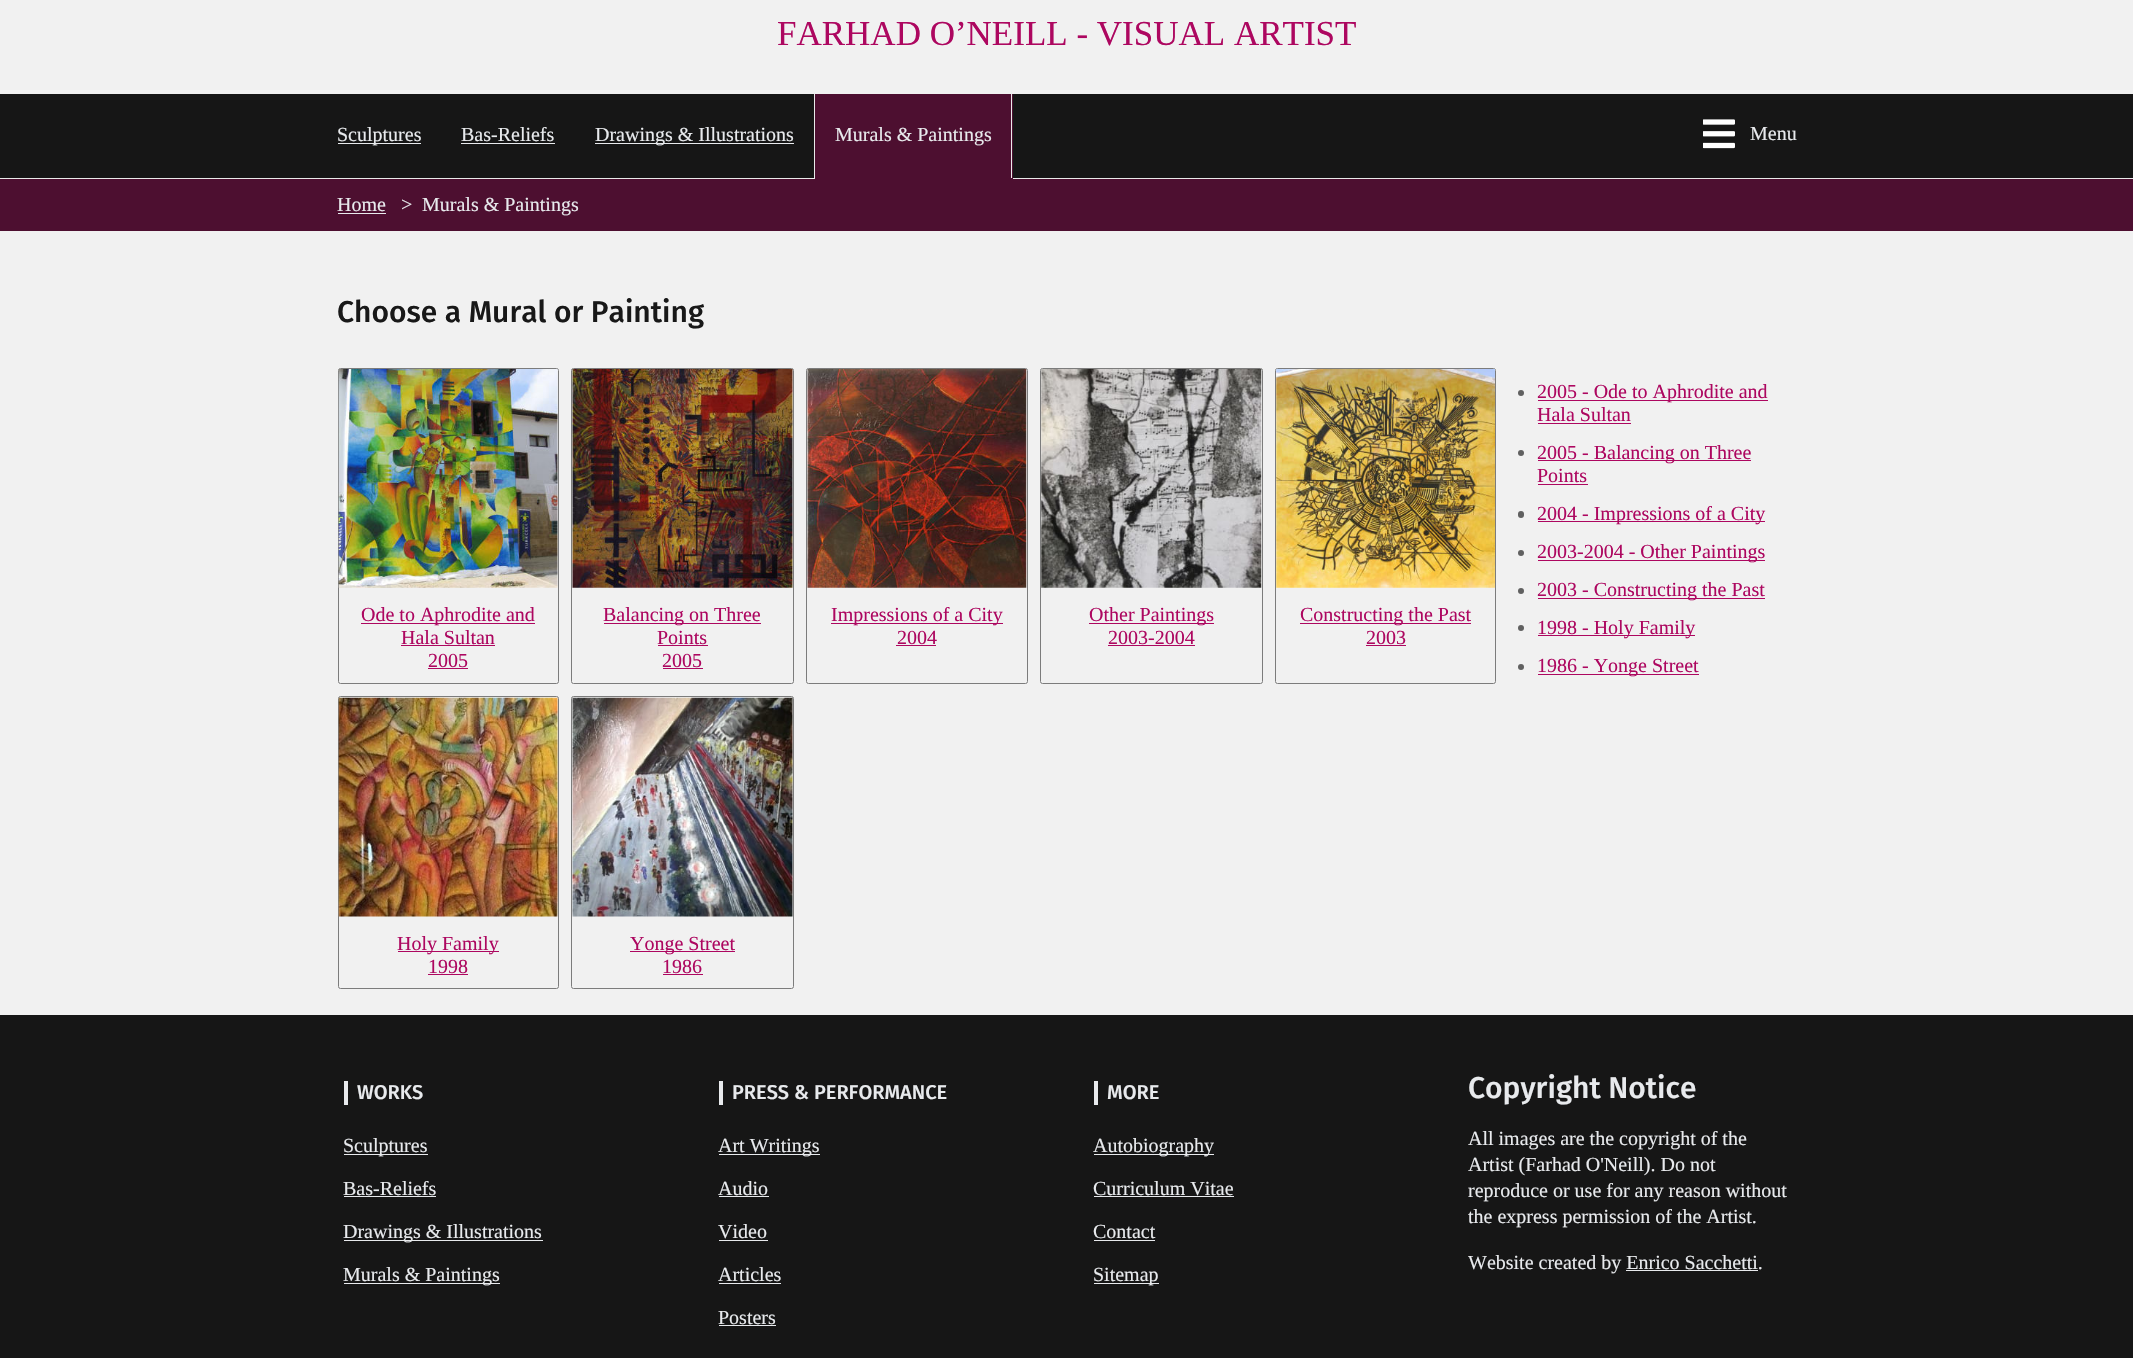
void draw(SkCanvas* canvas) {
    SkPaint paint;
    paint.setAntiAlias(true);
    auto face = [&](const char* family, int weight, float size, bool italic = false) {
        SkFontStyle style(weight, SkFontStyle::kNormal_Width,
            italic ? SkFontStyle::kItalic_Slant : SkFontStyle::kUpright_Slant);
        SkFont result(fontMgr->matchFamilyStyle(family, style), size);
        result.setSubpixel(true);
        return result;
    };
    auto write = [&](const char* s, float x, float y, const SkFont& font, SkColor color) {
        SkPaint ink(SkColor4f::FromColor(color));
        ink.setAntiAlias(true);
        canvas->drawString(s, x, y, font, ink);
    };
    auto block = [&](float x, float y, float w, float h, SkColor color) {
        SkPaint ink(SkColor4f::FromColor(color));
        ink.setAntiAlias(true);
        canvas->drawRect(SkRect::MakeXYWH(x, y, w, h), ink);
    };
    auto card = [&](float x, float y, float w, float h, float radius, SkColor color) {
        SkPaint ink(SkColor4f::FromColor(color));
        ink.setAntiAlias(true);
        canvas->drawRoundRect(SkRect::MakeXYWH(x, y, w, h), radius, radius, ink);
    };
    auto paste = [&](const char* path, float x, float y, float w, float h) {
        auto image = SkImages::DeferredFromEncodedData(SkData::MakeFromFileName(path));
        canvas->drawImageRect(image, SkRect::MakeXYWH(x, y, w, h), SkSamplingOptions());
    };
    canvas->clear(SkColorSetRGB(241, 241, 241));
    auto kFont1 = face("Liberation Serif", 400, 35);
    write("FARHAD O’NEILL - VISUAL ARTIST", 777, 45, kFont1, SkColorSetRGB(173, 7, 96));
    block(0, 94, 2133, 84, SkColorSetRGB(22, 22, 22));
    block(338, 143, 83, 1, SkColorSetRGB(232, 234, 237));
    auto kFont2 = face("Liberation Serif", 400, 20);
    write("Sculptures", 337, 141, kFont2, SkColorSetRGB(232, 234, 237));
    write("Bas-Reliefs", 461, 141, kFont2, SkColorSetRGB(232, 234, 237));
    block(461, 143, 94, 1, SkColorSetRGB(232, 234, 237));
    block(595, 143, 199, 1, SkColorSetRGB(232, 234, 237));
    write("Drawings & Illustrations", 595, 141, kFont2, SkColorSetRGB(232, 234, 237));
    block(815, 94, 198, 84, SkColorSetRGB(77, 15, 48));
    block(0, 178, 2133, 1, SkColorSetRGB(233, 233, 233));
    block(1011, 94, 1, 85, SkColorSetRGB(233, 233, 233));
    block(814, 178, 199, 1, SkColorSetRGB(77, 15, 48));
    block(814, 94, 1, 85, SkColorSetRGB(233, 233, 233));
    write("Murals & Paintings", 835, 141, kFont2, SkColorSetRGB(232, 234, 237));
    paste("pic1.png", 1703, 119, 32, 30);
    write("Menu", 1750, 140, kFont2, SkColorSetRGB(232, 234, 237));
    block(0, 179, 2133, 52, SkColorSetRGB(77, 15, 48));
    write("Home", 337, 211, kFont2, SkColorSetRGB(232, 234, 237));
    block(338, 213, 48, 1, SkColorSetRGB(232, 234, 237));
    write(">", 401, 211, kFont2, SkColorSetRGB(232, 234, 237));
    write("Murals & Paintings", 422, 211, kFont2, SkColorSetRGB(232, 234, 237));
    auto kFont3 = face("Fira Sans", 500, 30);
    write("Choose a Mural or Painting", 337, 322, kFont3, SkColorSetRGB(24, 24, 24));
    paint.setColor(SkColorSetRGB(96, 96, 96));
    canvas->drawCircle(1521, 393, 3, paint);
    block(1538, 400, 230, 1, SkColorSetRGB(173, 7, 96));
    write("2005 - Ode to Aphrodite and", 1537, 398, kFont2, SkColorSetRGB(173, 7, 96));
    write("Hala Sultan", 1537, 421, kFont2, SkColorSetRGB(173, 7, 96));
    block(1538, 423, 93, 1, SkColorSetRGB(173, 7, 96));
    canvas->drawCircle(1521, 453, 3, paint);
    block(1538, 460, 213, 1, SkColorSetRGB(173, 7, 96));
    write("2005 - Balancing on Three", 1537, 459, kFont2, SkColorSetRGB(173, 7, 96));
    write("Points", 1537, 482, kFont2, SkColorSetRGB(173, 7, 96));
    block(1538, 484, 50, 1, SkColorSetRGB(173, 7, 96));
    card(1518, 511, 6, 7, 3, SkColorSetRGB(96, 96, 96));
    block(1538, 521, 227, 1, SkColorSetRGB(173, 7, 96));
    write("2004 - Impressions of a City", 1537, 520, kFont2, SkColorSetRGB(173, 7, 96));
    canvas->drawCircle(1521, 553, 3, paint);
    block(1538, 560, 227, 1, SkColorSetRGB(173, 7, 96));
    write("2003-2004 - Other Paintings", 1537, 558, kFont2, SkColorSetRGB(173, 7, 96));
    canvas->drawCircle(1521, 591, 3, paint);
    block(1538, 598, 227, 1, SkColorSetRGB(173, 7, 96));
    write("2003 - Constructing the Past", 1537, 596, kFont2, SkColorSetRGB(173, 7, 96));
    canvas->drawCircle(1521, 628, 3, paint);
    block(1538, 635, 157, 1, SkColorSetRGB(173, 7, 96));
    write("1998 - Holy Family", 1537, 634, kFont2, SkColorSetRGB(173, 7, 96));
    canvas->drawCircle(1521, 667, 3, paint);
    block(1538, 674, 161, 1, SkColorSetRGB(173, 7, 96));
    write("1986 - Yonge Street", 1537, 672, kFont2, SkColorSetRGB(173, 7, 96));
    paint.setStyle(SkPaint::kStroke_Style);
    paint.setStrokeWidth(1);
    paint.setColor(SkColorSetRGB(124, 124, 124));
    canvas->drawRoundRect(SkRect::MakeXYWH(338.5f, 368.5f, 220, 315), 2, 2, paint);
    paste("pic2.png", 338, 369, 220, 219);
    block(361, 623, 174, 1, SkColorSetRGB(173, 7, 96));
    write("Ode to Aphrodite and", 361, 621, kFont2, SkColorSetRGB(173, 7, 96));
    write("Hala Sultan", 401, 644, kFont2, SkColorSetRGB(173, 7, 96));
    block(401, 645, 94, 1, SkColorSetRGB(173, 7, 96));
    write("2005", 428, 667, kFont2, SkColorSetRGB(173, 7, 96));
    block(428, 668, 40, 1, SkColorSetRGB(173, 7, 96));
    canvas->drawRoundRect(SkRect::MakeXYWH(571.5f, 368.5f, 222, 315), 2, 2, paint);
    paste("pic3.png", 572, 369, 221, 219);
    block(604, 623, 157, 1, SkColorSetRGB(173, 7, 96));
    write("Balancing on Three", 603, 621, kFont2, SkColorSetRGB(173, 7, 96));
    write("Points", 657, 644, kFont2, SkColorSetRGB(173, 7, 96));
    block(658, 645, 50, 1, SkColorSetRGB(173, 7, 96));
    write("2005", 662, 667, kFont2, SkColorSetRGB(173, 7, 96));
    block(663, 668, 40, 1, SkColorSetRGB(173, 7, 96));
    canvas->drawRoundRect(SkRect::MakeXYWH(806.5f, 368.5f, 221, 315), 2, 2, paint);
    paste("pic4.png", 807, 369, 220, 219);
    block(831, 623, 172, 1, SkColorSetRGB(173, 7, 96));
    write("Impressions of a City", 831, 621, kFont2, SkColorSetRGB(173, 7, 96));
    write("2004", 897, 644, kFont2, SkColorSetRGB(173, 7, 96));
    block(896, 645, 40, 1, SkColorSetRGB(173, 7, 96));
    canvas->drawRoundRect(SkRect::MakeXYWH(1040.5f, 368.5f, 222, 315), 2, 2, paint);
    paste("pic5.png", 1041, 369, 221, 219);
    block(1089, 623, 125, 1, SkColorSetRGB(173, 7, 96));
    write("Other Paintings", 1089, 621, kFont2, SkColorSetRGB(173, 7, 96));
    write("2003-2004", 1108, 644, kFont2, SkColorSetRGB(173, 7, 96));
    block(1108, 645, 87, 1, SkColorSetRGB(173, 7, 96));
    canvas->drawRoundRect(SkRect::MakeXYWH(1275.5f, 368.5f, 220, 315), 2, 2, paint);
    paste("pic6.png", 1276, 369, 219, 219);
    block(1300, 623, 171, 1, SkColorSetRGB(173, 7, 96));
    write("Constructing the Past", 1300, 621, kFont2, SkColorSetRGB(173, 7, 96));
    write("2003", 1366, 644, kFont2, SkColorSetRGB(173, 7, 96));
    block(1366, 645, 40, 1, SkColorSetRGB(173, 7, 96));
    canvas->drawRoundRect(SkRect::MakeXYWH(338.5f, 696.5f, 220, 292), 2, 2, paint);
    paste("pic7.png", 338, 697, 220, 220);
    block(398, 951, 101, 1, SkColorSetRGB(173, 7, 96));
    write("Holy Family", 397, 950, kFont2, SkColorSetRGB(173, 7, 96));
    write("1998", 428, 973, kFont2, SkColorSetRGB(173, 7, 96));
    block(428, 974, 40, 1, SkColorSetRGB(173, 7, 96));
    canvas->drawRoundRect(SkRect::MakeXYWH(571.5f, 696.5f, 222, 292), 2, 2, paint);
    paste("pic8.png", 572, 697, 221, 220);
    block(630, 951, 105, 1, SkColorSetRGB(173, 7, 96));
    write("Yonge Street", 630, 950, kFont2, SkColorSetRGB(173, 7, 96));
    write("1986", 662, 973, kFont2, SkColorSetRGB(173, 7, 96));
    block(663, 974, 40, 1, SkColorSetRGB(173, 7, 96));
    block(0, 1015, 2133, 343, SkColorSetRGB(22, 22, 22));
    block(344, 1081, 4, 24, SkColorSetRGB(232, 234, 237));
    auto kFont4 = face("Fira Sans", 500, 20);
    write("WORKS", 357, 1099, kFont4, SkColorSetRGB(232, 234, 237));
    block(344, 1154, 84, 1, SkColorSetRGB(232, 234, 237));
    write("Sculptures", 343, 1152, kFont2, SkColorSetRGB(232, 234, 237));
    write("Bas-Reliefs", 343, 1195, kFont2, SkColorSetRGB(232, 234, 237));
    block(344, 1196, 92, 1, SkColorSetRGB(232, 234, 237));
    block(344, 1240, 199, 1, SkColorSetRGB(232, 234, 237));
    write("Drawings & Illustrations", 343, 1238, kFont2, SkColorSetRGB(232, 234, 237));
    block(344, 1283, 156, 1, SkColorSetRGB(232, 234, 237));
    write("Murals & Paintings", 343, 1281, kFont2, SkColorSetRGB(232, 234, 237));
    block(719, 1081, 4, 24, SkColorSetRGB(232, 234, 237));
    write("PRESS & PERFORMANCE", 732, 1099, kFont4, SkColorSetRGB(232, 234, 237));
    block(719, 1154, 101, 1, SkColorSetRGB(232, 234, 237));
    write("Art Writings", 718, 1152, kFont2, SkColorSetRGB(232, 234, 237));
    write("Audio", 718, 1195, kFont2, SkColorSetRGB(232, 234, 237));
    block(719, 1196, 50, 1, SkColorSetRGB(232, 234, 237));
    write("Video", 718, 1238, kFont2, SkColorSetRGB(232, 234, 237));
    block(719, 1240, 49, 1, SkColorSetRGB(232, 234, 237));
    write("Articles", 718, 1281, kFont2, SkColorSetRGB(232, 234, 237));
    block(719, 1283, 62, 1, SkColorSetRGB(232, 234, 237));
    write("Posters", 718, 1324, kFont2, SkColorSetRGB(232, 234, 237));
    block(719, 1325, 57, 1, SkColorSetRGB(232, 234, 237));
    block(1094, 1081, 4, 24, SkColorSetRGB(232, 234, 237));
    write("MORE", 1107, 1099, kFont4, SkColorSetRGB(232, 234, 237));
    block(1094, 1154, 120, 1, SkColorSetRGB(232, 234, 237));
    write("Autobiography", 1093, 1152, kFont2, SkColorSetRGB(232, 234, 237));
    write("Curriculum Vitae", 1093, 1195, kFont2, SkColorSetRGB(232, 234, 237));
    block(1094, 1196, 140, 1, SkColorSetRGB(232, 234, 237));
    write("Contact", 1093, 1238, kFont2, SkColorSetRGB(232, 234, 237));
    block(1094, 1240, 61, 1, SkColorSetRGB(232, 234, 237));
    block(1094, 1283, 65, 1, SkColorSetRGB(232, 234, 237));
    write("Sitemap", 1093, 1281, kFont2, SkColorSetRGB(232, 234, 237));
    write("Copyright Notice", 1468, 1098, kFont3, SkColorSetRGB(232, 234, 237));
    write("All images are the copyright of the", 1468, 1145, kFont2, SkColorSetRGB(232, 234, 237));
    write("Artist (Farhad O'Neill). Do not", 1468, 1171, kFont2, SkColorSetRGB(232, 234, 237));
    write("reproduce or use for any reason without", 1468, 1197, kFont2, SkColorSetRGB(232, 234, 237));
    write("the express permission of the Artist.", 1468, 1223, kFont2, SkColorSetRGB(232, 234, 237));
    write("Website created by Enrico Sacchetti.", 1468, 1269, kFont2, SkColorSetRGB(232, 234, 237));
    block(1626, 1270, 132, 1, SkColorSetRGB(232, 234, 237));
}
